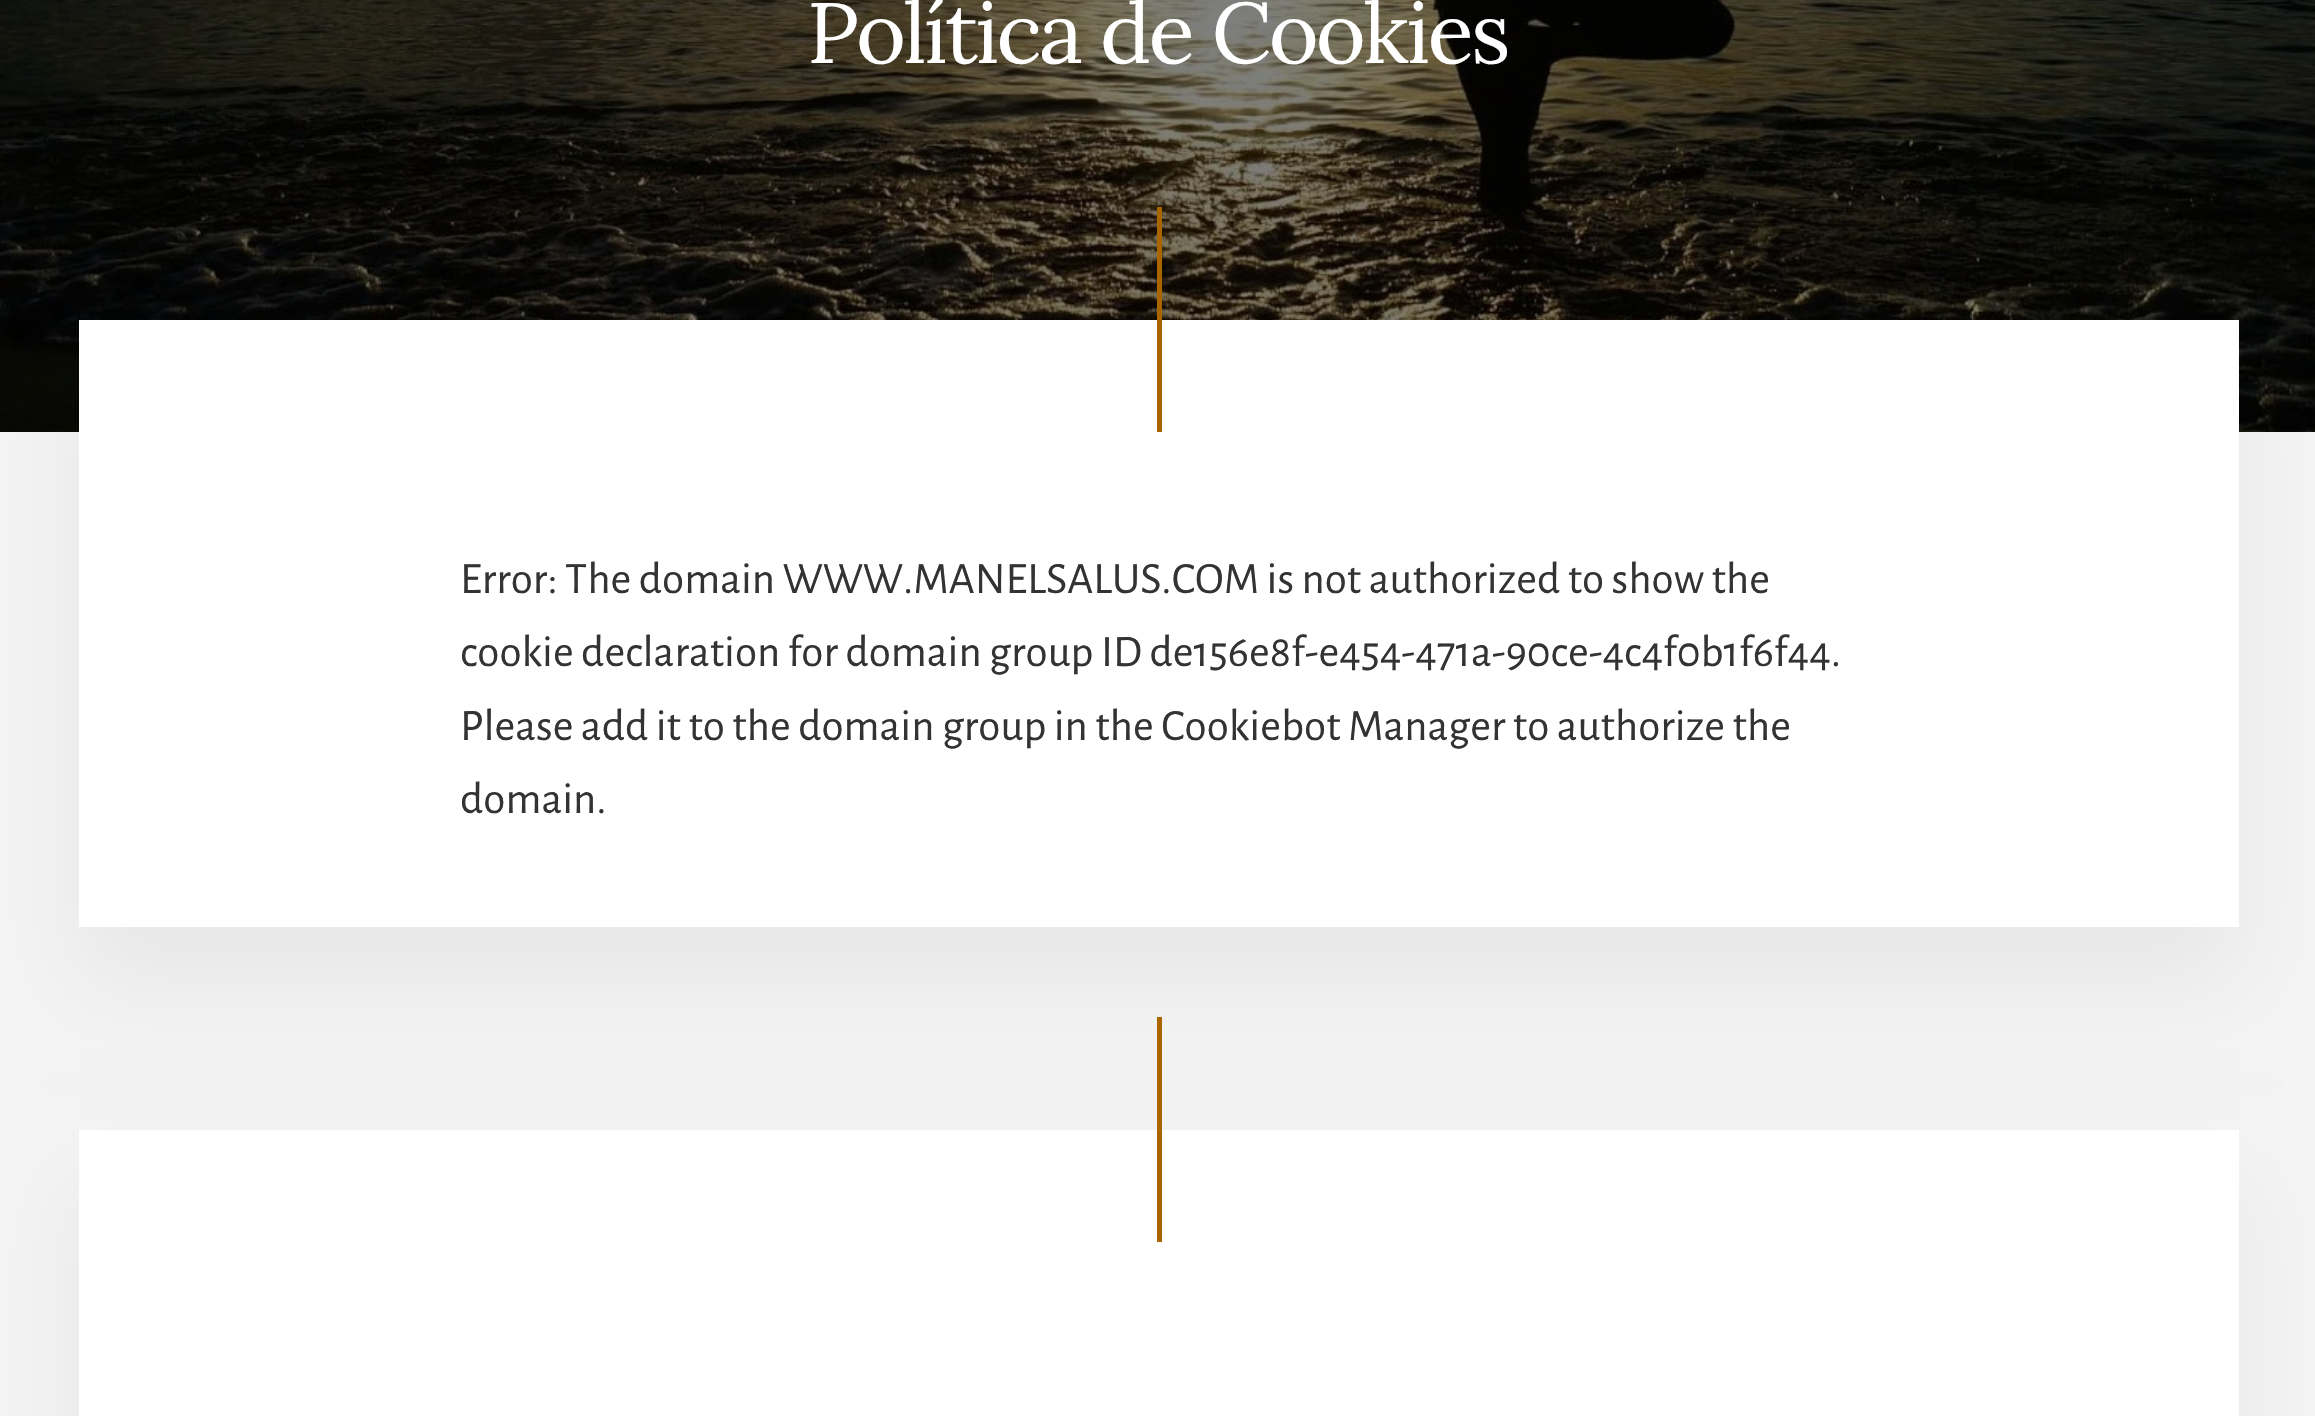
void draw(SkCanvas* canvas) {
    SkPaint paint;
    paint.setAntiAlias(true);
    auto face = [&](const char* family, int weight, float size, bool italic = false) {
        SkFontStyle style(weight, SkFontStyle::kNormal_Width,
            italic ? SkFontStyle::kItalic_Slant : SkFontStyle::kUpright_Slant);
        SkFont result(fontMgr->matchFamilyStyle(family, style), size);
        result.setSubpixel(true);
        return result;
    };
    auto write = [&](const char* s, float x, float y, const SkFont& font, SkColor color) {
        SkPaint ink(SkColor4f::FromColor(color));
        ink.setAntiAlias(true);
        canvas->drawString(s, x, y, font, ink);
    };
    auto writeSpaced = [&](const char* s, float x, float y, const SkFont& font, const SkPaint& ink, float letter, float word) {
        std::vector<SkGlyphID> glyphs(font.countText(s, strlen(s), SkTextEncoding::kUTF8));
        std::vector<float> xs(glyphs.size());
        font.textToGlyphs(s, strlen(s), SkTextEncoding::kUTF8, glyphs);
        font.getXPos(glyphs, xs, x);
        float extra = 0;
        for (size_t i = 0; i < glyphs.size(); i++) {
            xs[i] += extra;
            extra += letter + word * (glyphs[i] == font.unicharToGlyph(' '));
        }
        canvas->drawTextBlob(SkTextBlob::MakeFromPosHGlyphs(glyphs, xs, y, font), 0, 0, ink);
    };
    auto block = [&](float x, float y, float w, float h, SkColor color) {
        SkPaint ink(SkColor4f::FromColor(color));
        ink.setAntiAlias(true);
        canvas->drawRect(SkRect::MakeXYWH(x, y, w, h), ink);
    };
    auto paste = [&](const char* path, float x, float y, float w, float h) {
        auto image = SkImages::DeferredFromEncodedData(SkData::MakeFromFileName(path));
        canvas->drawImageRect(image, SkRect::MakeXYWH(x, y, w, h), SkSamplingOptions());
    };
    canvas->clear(SkColorSetRGB(244, 244, 244));
    paste("pic1.png", 0, 0, 2315, 432);
    auto kFont1 = face("Lora", 400, 85.5f);
    paint.setColor(SK_ColorWHITE);
    writeSpaced("Política de Cookies", 807, 63, kFont1, paint, -2.8f, 0);
    paint.setColor(SkColorSetARGB(13, 0, 0, 0));
    paint.setMaskFilter(SkMaskFilter::MakeBlur(kNormal_SkBlurStyle, 45));
    canvas->drawRect(SkRect::MakeXYWH(79, 376, 2160, 607), paint);
    paint.setMaskFilter(nullptr);
    block(79, 320, 2160, 607, SK_ColorWHITE);
    block(1157, 207, 5, 225, SkColorSetRGB(168, 101, 0));
    auto kFont2 = face("Alegreya Sans", 400, 45);
    write("Error: The domain WWW.MANELSALUS.COM is not authorized to show the", 460, 593, kFont2, SkColorSetRGB(51, 51, 51));
    write("cookie declaration for domain group ID de156e8f-e454-471a-90ce-4c4f0b1f6f44.", 460, 666, kFont2, SkColorSetRGB(51, 51, 51));
    write("Please add it to the domain group in the Cookiebot Manager to authorize the", 460, 740, kFont2, SkColorSetRGB(51, 51, 51));
    write("domain.", 460, 813, kFont2, SkColorSetRGB(51, 51, 51));
    paint.setMaskFilter(SkMaskFilter::MakeBlur(kNormal_SkBlurStyle, 45));
    canvas->drawRect(SkRect::MakeXYWH(79, 1186, 2160, 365), paint);
    paint.setMaskFilter(nullptr);
    block(79, 1130, 2160, 286, SK_ColorWHITE);
    block(1157, 1017, 5, 225, SkColorSetRGB(168, 101, 0));
}
